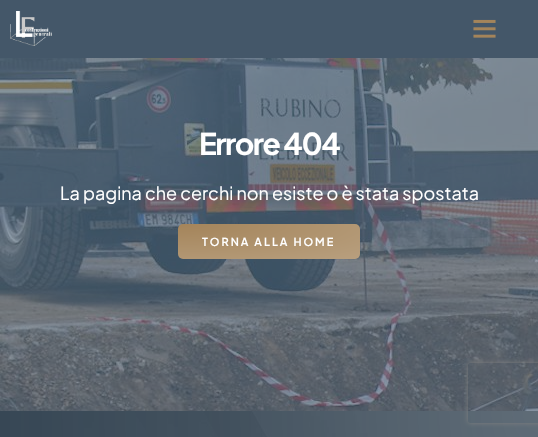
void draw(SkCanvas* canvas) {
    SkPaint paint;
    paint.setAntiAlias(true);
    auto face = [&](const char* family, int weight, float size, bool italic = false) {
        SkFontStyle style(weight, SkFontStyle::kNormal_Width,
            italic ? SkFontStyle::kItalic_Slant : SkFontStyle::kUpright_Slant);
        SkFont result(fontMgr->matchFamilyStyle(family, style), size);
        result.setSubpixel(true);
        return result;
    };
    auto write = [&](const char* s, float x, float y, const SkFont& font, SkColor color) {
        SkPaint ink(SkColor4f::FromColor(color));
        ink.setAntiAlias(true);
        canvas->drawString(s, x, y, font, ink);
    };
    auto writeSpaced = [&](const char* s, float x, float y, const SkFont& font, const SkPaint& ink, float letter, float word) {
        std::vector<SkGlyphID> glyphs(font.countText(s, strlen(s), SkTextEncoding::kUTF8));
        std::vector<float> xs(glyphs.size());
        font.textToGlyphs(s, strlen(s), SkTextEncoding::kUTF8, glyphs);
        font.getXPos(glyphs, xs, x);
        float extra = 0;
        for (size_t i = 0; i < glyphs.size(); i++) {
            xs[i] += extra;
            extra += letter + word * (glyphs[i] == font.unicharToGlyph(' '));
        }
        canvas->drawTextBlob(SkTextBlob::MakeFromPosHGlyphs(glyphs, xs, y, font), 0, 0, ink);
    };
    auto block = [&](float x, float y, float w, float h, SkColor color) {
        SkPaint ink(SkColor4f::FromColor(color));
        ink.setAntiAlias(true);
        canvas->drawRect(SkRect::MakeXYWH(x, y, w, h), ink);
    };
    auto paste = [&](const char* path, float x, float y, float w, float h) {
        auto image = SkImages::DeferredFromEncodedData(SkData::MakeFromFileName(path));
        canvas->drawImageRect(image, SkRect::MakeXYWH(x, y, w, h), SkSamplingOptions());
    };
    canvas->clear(SK_ColorWHITE);
    block(0, 0, 538, 58, SkColorSetRGB(68, 87, 105));
    paste("pic1.png", 10, 11, 42, 35);
    paste("pic2.png", 473, 19, 23, 19);
    paste("pic3.png", 0, 58, 538, 353);
    auto kFont1 = face("Plus Jakarta Sans", 700, 30);
    paint.setColor(SK_ColorWHITE);
    writeSpaced("Errore 404", 199, 155, kFont1, paint, -1.5f, 0);
    auto kFont2 = face("Plus Jakarta Sans", 400, 18);
    write("La pagina che cerchi non esiste o è stata spostata", 60, 200, kFont2, SK_ColorWHITE);
    {
        const SkColor colors[] = {SkColorSetRGB(164, 132, 90), SkColorSetRGB(184, 159, 126)};
        const float stops[] = {0, 1};
        SkMatrix m = SkMatrix::Translate(178, 224).preScale(257, 49);
        paint.setShader(SkGradientShader::MakeRadial({0, 0}, 1, colors, stops, 2, SkTileMode::kClamp, 0, &m));
        paint.setAlpha(255);
    }
    canvas->drawRoundRect(SkRect::MakeXYWH(178, 224, 182, 35), 5, 5, paint);
    auto kFont3 = face("Plus Jakarta Sans", 600, 11);
    paint.setShader(nullptr);
    paint.setColor(SK_ColorWHITE);
    writeSpaced("TORNA ALLA HOME", 202, 246, kFont3, paint, 2, 0);
    paste("pic4.png", 0, 411, 538, 26);
    canvas->save();
    canvas->clipPath(SkPathBuilder(SkPathFillType::kEvenOdd).moveTo(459, 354).lineTo(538, 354).lineTo(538, 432).lineTo(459, 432).close().moveTo(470, 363).lineTo(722, 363).cubicTo(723, 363, 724, 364, 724, 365).lineTo(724, 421).cubicTo(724, 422, 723, 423, 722, 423).lineTo(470, 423).cubicTo(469, 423, 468, 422, 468, 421).lineTo(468, 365).cubicTo(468, 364, 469, 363, 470, 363).close().detach(), true);
    paint.setColor(SkColorSetRGB(128, 128, 128));
    paint.setMaskFilter(SkMaskFilter::MakeBlur(kNormal_SkBlurStyle, 2.5f));
    canvas->drawRoundRect(SkRect::MakeXYWH(468, 363, 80, 60), 2, 2, paint);
    paint.setMaskFilter(nullptr);
    canvas->restore();
}
